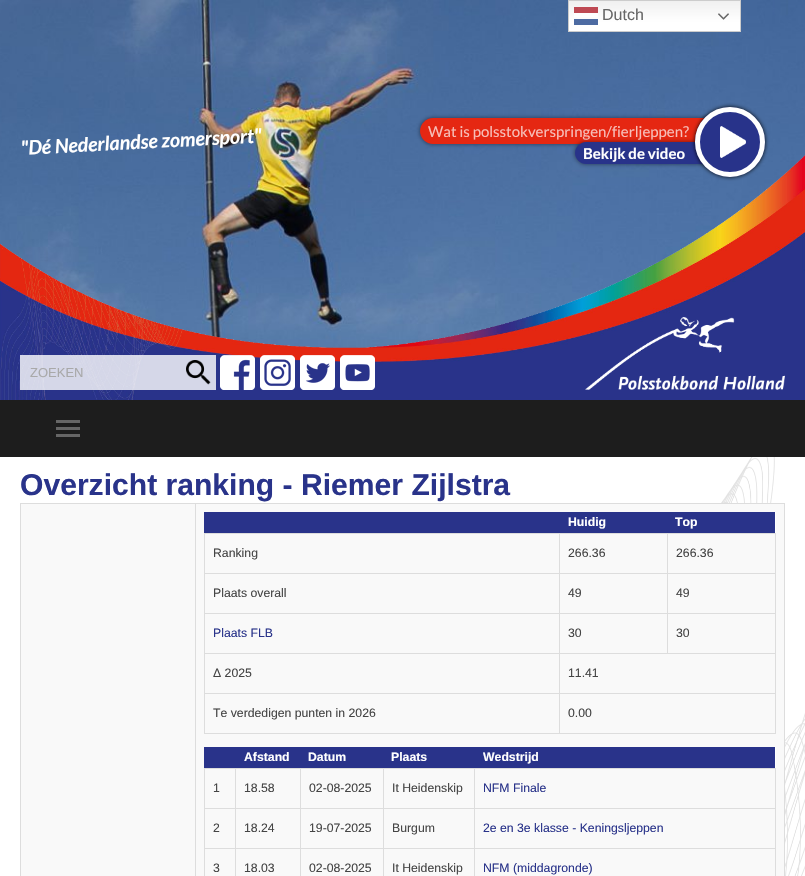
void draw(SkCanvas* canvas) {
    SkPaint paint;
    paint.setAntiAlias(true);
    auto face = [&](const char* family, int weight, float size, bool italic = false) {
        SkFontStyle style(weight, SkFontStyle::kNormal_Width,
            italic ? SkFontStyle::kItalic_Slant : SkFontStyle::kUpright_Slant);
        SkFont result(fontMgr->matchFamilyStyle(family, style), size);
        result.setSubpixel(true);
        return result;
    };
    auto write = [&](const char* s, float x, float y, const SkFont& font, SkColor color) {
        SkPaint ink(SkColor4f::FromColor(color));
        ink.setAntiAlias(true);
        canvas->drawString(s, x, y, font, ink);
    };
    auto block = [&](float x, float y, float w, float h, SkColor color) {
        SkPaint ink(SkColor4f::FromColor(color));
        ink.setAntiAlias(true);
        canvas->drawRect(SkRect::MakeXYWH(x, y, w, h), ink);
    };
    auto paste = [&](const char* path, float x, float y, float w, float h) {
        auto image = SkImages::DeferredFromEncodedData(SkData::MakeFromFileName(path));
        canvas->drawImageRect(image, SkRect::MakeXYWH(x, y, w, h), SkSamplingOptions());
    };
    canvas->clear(SK_ColorWHITE);
    paste("pic1.png", 721, 457, 84, 419);
    paste("pic3.png", 0, 0, 805, 400);
    {
        const SkColor colors[] = {SkColorSetRGB(239, 239, 239), SK_ColorWHITE};
        const float stops[] = {0, 0.7f};
        const SkPoint ends[] = {{655, 0}, {655, 32}};
        paint.setShader(SkGradientShader::MakeLinear(ends, colors, stops, 2, SkTileMode::kClamp));
        paint.setAlpha(255);
    }
    canvas->drawRect(SkRect::MakeXYWH(569, 1, 171, 30), paint);
    paint.setStyle(SkPaint::kStroke_Style);
    paint.setStrokeWidth(1);
    paint.setShader(nullptr);
    paint.setColor(SkColorSetRGB(204, 204, 204));
    canvas->drawRect(SkRect::MakeXYWH(568.5f, 0.5f, 172, 31), paint);
    block(574, 7, 24, 6, SkColorSetRGB(190, 73, 83));
    auto kFont1 = face("Liberation Sans", 400, 16);
    write("Dutch", 602, 20, kFont1, SkColorSetRGB(102, 102, 102));
    block(574, 13, 24, 4, SkColorSetARGB(204, 255, 255, 255));
    paste("pic2.png", 718, 13, 11, 7);
    block(574, 19, 24, 6, SkColorSetRGB(77, 107, 162));
    auto kFont2 = face("Lato", 700, 19.6f, true);
    canvas->save();
    canvas->rotate(-3, 21, 155);
    write("\"Dé Nederlandse zomersport\"", 21, 155, kFont2, SK_ColorWHITE);
    canvas->restore();
    block(20, 355, 161, 35, SkColorSetARGB(204, 255, 255, 255));
    auto kFont3 = face("Liberation Sans", 400, 13);
    write("ZOEKEN", 30, 377, kFont3, SkColorSetRGB(169, 169, 169));
    block(181, 355, 35, 35, SkColorSetARGB(204, 255, 255, 255));
    paste("pic4.png", 186, 360, 25, 25);
    paste("pic5.png", 220, 355, 35, 35);
    paste("pic6.png", 260, 355, 35, 35);
    paste("pic7.png", 300, 355, 35, 35);
    paste("pic8.png", 340, 355, 35, 35);
    paste("pic9.png", 585, 317, 200, 73);
    paint.setStyle(SkPaint::kFill_Style);
    paint.setColor(SkColorSetARGB(128, 0, 0, 0));
    paint.setMaskFilter(SkMaskFilter::MakeBlur(kNormal_SkBlurStyle, 2));
    canvas->drawRoundRect(SkRect::MakeXYWH(420, 118, 320, 26), 13, 13, paint);
    paint.setMaskFilter(nullptr);
    paint.setColor(SkColorSetRGB(229, 39, 18));
    canvas->drawPath(SkPathBuilder().moveTo(433, 118).lineTo(740, 118).lineTo(740, 144).lineTo(433, 144).cubicTo(426, 144, 420, 138, 420, 131).cubicTo(420, 124, 426, 118, 433, 118).close().detach(), paint);
    auto kFont4 = face("Lato", 400, 15);
    write("Wat is polsstokverspringen/fierljeppen?", 428, 137, kFont4, SkColorSetRGB(247, 190, 184));
    paint.setColor(SkColorSetARGB(128, 0, 0, 0));
    paint.setMaskFilter(SkMaskFilter::MakeBlur(kNormal_SkBlurStyle, 2));
    canvas->drawRoundRect(SkRect::MakeXYWH(575, 142, 150, 22), 11, 11, paint);
    paint.setMaskFilter(nullptr);
    paint.setColor(SkColorSetRGB(40, 51, 138));
    canvas->drawPath(SkPathBuilder().moveTo(586, 142).lineTo(725, 142).lineTo(725, 164).lineTo(586, 164).cubicTo(580, 164, 575, 159, 575, 153).cubicTo(575, 147, 580, 142, 586, 142).close().detach(), paint);
    paint.setColor(SK_ColorBLACK);
    paint.setMaskFilter(SkMaskFilter::MakeBlur(kNormal_SkBlurStyle, 2));
    canvas->drawRoundRect(SkRect::MakeXYWH(695, 107, 70, 70), 35, 35, paint);
    paint.setMaskFilter(nullptr);
    paint.setColor(SkColorSetRGB(40, 51, 138));
    canvas->drawCircle(730, 142, 35, paint);
    paste("pic10.png", 720, 126, 26, 32);
    paint.setStyle(SkPaint::kStroke_Style);
    paint.setStrokeWidth(5);
    paint.setColor(SK_ColorWHITE);
    canvas->drawCircle(730, 142, 32.5f, paint);
    auto kFont5 = face("Lato", 700, 15);
    write("Bekijk de video", 583, 159, kFont5, SK_ColorWHITE);
    block(0, 400, 805, 57, SkColorSetRGB(29, 29, 29));
    block(56, 420, 24, 3, SkColorSetRGB(102, 102, 102));
    block(56, 427, 24, 3, SkColorSetRGB(102, 102, 102));
    block(56, 434, 24, 3, SkColorSetRGB(102, 102, 102));
    auto kFont6 = face("Liberation Sans", 700, 30.1f);
    write("Overzicht ranking - Riemer Zijlstra", 20, 495, kFont6, SkColorSetRGB(41, 51, 138));
    block(21, 504, 174, 372, SkColorSetRGB(249, 249, 249));
    block(195, 503, 590, 1, SkColorSetRGB(221, 221, 221));
    block(195, 503, 1, 373, SkColorSetRGB(221, 221, 221));
    block(20, 503, 176, 1, SkColorSetRGB(221, 221, 221));
    block(20, 503, 1, 373, SkColorSetRGB(221, 221, 221));
    block(196, 504, 588, 372, SkColorSetRGB(249, 249, 249));
    block(784, 503, 1, 373, SkColorSetRGB(221, 221, 221));
    block(775, 512, 1, 21, SK_ColorWHITE);
    block(204, 512, 571, 21, SkColorSetRGB(41, 51, 138));
    auto kFont7 = face("Liberation Sans", 700, 12.25f);
    write("Huidig", 568, 526, kFont7, SK_ColorWHITE);
    write("Top", 675, 526, kFont7, SK_ColorWHITE);
    block(667, 533, 109, 1, SkColorSetRGB(221, 221, 221));
    block(667, 573, 109, 1, SkColorSetRGB(221, 221, 221));
    block(667, 613, 109, 1, SkColorSetRGB(221, 221, 221));
    block(559, 653, 217, 1, SkColorSetRGB(221, 221, 221));
    block(667, 613, 1, 41, SkColorSetRGB(221, 221, 221));
    block(559, 613, 109, 1, SkColorSetRGB(221, 221, 221));
    block(667, 573, 1, 41, SkColorSetRGB(221, 221, 221));
    block(559, 573, 109, 1, SkColorSetRGB(221, 221, 221));
    block(667, 533, 1, 41, SkColorSetRGB(221, 221, 221));
    block(559, 533, 109, 1, SkColorSetRGB(221, 221, 221));
    block(559, 693, 217, 1, SkColorSetRGB(221, 221, 221));
    block(775, 693, 1, 41, SkColorSetRGB(221, 221, 221));
    block(559, 733, 217, 1, SkColorSetRGB(221, 221, 221));
    block(559, 693, 1, 41, SkColorSetRGB(221, 221, 221));
    block(204, 693, 356, 1, SkColorSetRGB(221, 221, 221));
    block(559, 653, 1, 41, SkColorSetRGB(221, 221, 221));
    block(204, 653, 356, 1, SkColorSetRGB(221, 221, 221));
    block(559, 613, 1, 41, SkColorSetRGB(221, 221, 221));
    block(204, 613, 356, 1, SkColorSetRGB(221, 221, 221));
    block(559, 573, 1, 41, SkColorSetRGB(221, 221, 221));
    block(204, 573, 356, 1, SkColorSetRGB(221, 221, 221));
    block(559, 533, 1, 41, SkColorSetRGB(221, 221, 221));
    block(204, 533, 356, 1, SkColorSetRGB(221, 221, 221));
    block(204, 733, 356, 1, SkColorSetRGB(221, 221, 221));
    block(204, 693, 1, 41, SkColorSetRGB(221, 221, 221));
    block(204, 653, 1, 41, SkColorSetRGB(221, 221, 221));
    block(204, 613, 1, 41, SkColorSetRGB(221, 221, 221));
    block(204, 573, 1, 41, SkColorSetRGB(221, 221, 221));
    block(204, 533, 1, 41, SkColorSetRGB(221, 221, 221));
    auto kFont8 = face("Liberation Sans", 400, 12.25f);
    write("Ranking", 213, 557, kFont8, SkColorSetRGB(68, 68, 68));
    write("266.36", 568, 557, kFont8, SkColorSetRGB(68, 68, 68));
    block(775, 653, 1, 41, SkColorSetRGB(221, 221, 221));
    block(775, 613, 1, 41, SkColorSetRGB(221, 221, 221));
    block(775, 573, 1, 41, SkColorSetRGB(221, 221, 221));
    block(775, 533, 1, 41, SkColorSetRGB(221, 221, 221));
    write("266.36", 676, 557, kFont8, SkColorSetRGB(68, 68, 68));
    write("Plaats overall", 213, 597, kFont8, SkColorSetRGB(68, 68, 68));
    write("49", 568, 597, kFont8, SkColorSetRGB(68, 68, 68));
    write("49", 676, 597, kFont8, SkColorSetRGB(68, 68, 68));
    write("Plaats FLB", 213, 637, kFont8, SkColorSetRGB(41, 51, 138));
    write("30", 568, 637, kFont8, SkColorSetRGB(68, 68, 68));
    write("30", 676, 637, kFont8, SkColorSetRGB(68, 68, 68));
    write("Δ 2025", 213, 677, kFont8, SkColorSetRGB(68, 68, 68));
    write("11.41", 568, 677, kFont8, SkColorSetRGB(68, 68, 68));
    write("Te verdedigen punten in 2026", 213, 717, kFont8, SkColorSetRGB(68, 68, 68));
    write("0.00", 568, 717, kFont8, SkColorSetRGB(68, 68, 68));
    block(775, 747, 1, 21, SK_ColorWHITE);
    block(204, 747, 571, 21, SkColorSetRGB(41, 51, 138));
    write("Afstand", 244, 761, kFont7, SK_ColorWHITE);
    write("Datum", 308, 761, kFont7, SK_ColorWHITE);
    write("Plaats", 391, 761, kFont7, SK_ColorWHITE);
    write("Wedstrijd", 483, 761, kFont7, SK_ColorWHITE);
    block(474, 768, 302, 1, SkColorSetRGB(221, 221, 221));
    block(474, 808, 302, 1, SkColorSetRGB(221, 221, 221));
    block(474, 848, 302, 1, SkColorSetRGB(221, 221, 221));
    block(474, 848, 1, 28, SkColorSetRGB(221, 221, 221));
    block(383, 848, 92, 1, SkColorSetRGB(221, 221, 221));
    block(474, 808, 1, 41, SkColorSetRGB(221, 221, 221));
    block(383, 808, 92, 1, SkColorSetRGB(221, 221, 221));
    block(474, 768, 1, 41, SkColorSetRGB(221, 221, 221));
    block(383, 768, 92, 1, SkColorSetRGB(221, 221, 221));
    block(383, 848, 1, 28, SkColorSetRGB(221, 221, 221));
    block(300, 848, 84, 1, SkColorSetRGB(221, 221, 221));
    block(383, 808, 1, 41, SkColorSetRGB(221, 221, 221));
    block(300, 808, 84, 1, SkColorSetRGB(221, 221, 221));
    block(383, 768, 1, 41, SkColorSetRGB(221, 221, 221));
    block(300, 768, 84, 1, SkColorSetRGB(221, 221, 221));
    block(300, 848, 1, 28, SkColorSetRGB(221, 221, 221));
    block(235, 848, 66, 1, SkColorSetRGB(221, 221, 221));
    block(300, 808, 1, 41, SkColorSetRGB(221, 221, 221));
    block(235, 808, 66, 1, SkColorSetRGB(221, 221, 221));
    block(300, 768, 1, 41, SkColorSetRGB(221, 221, 221));
    block(235, 768, 66, 1, SkColorSetRGB(221, 221, 221));
    block(235, 848, 1, 28, SkColorSetRGB(221, 221, 221));
    block(204, 848, 32, 1, SkColorSetRGB(221, 221, 221));
    block(235, 808, 1, 41, SkColorSetRGB(221, 221, 221));
    block(204, 808, 32, 1, SkColorSetRGB(221, 221, 221));
    block(235, 768, 1, 41, SkColorSetRGB(221, 221, 221));
    block(204, 768, 32, 1, SkColorSetRGB(221, 221, 221));
    block(204, 848, 1, 28, SkColorSetRGB(221, 221, 221));
    block(204, 808, 1, 41, SkColorSetRGB(221, 221, 221));
    block(204, 768, 1, 41, SkColorSetRGB(221, 221, 221));
    write("1", 213, 792, kFont8, SkColorSetRGB(68, 68, 68));
    write("18.58", 244, 792, kFont8, SkColorSetRGB(68, 68, 68));
    write("02-08-2025", 309, 792, kFont8, SkColorSetRGB(68, 68, 68));
    write("It Heidenskip", 392, 792, kFont8, SkColorSetRGB(68, 68, 68));
    block(775, 848, 1, 28, SkColorSetRGB(221, 221, 221));
    block(775, 808, 1, 41, SkColorSetRGB(221, 221, 221));
    block(775, 768, 1, 41, SkColorSetRGB(221, 221, 221));
    write("NFM Finale", 483, 792, kFont8, SkColorSetRGB(41, 51, 138));
    write("2", 213, 832, kFont8, SkColorSetRGB(68, 68, 68));
    write("18.24", 244, 832, kFont8, SkColorSetRGB(68, 68, 68));
    write("19-07-2025", 309, 832, kFont8, SkColorSetRGB(68, 68, 68));
    write("Burgum", 392, 832, kFont8, SkColorSetRGB(68, 68, 68));
    write("2e en 3e klasse - Keningsljeppen", 483, 832, kFont8, SkColorSetRGB(41, 51, 138));
    write("3", 213, 872, kFont8, SkColorSetRGB(68, 68, 68));
    write("18.03", 244, 872, kFont8, SkColorSetRGB(68, 68, 68));
    write("02-08-2025", 309, 872, kFont8, SkColorSetRGB(68, 68, 68));
    write("It Heidenskip", 392, 872, kFont8, SkColorSetRGB(68, 68, 68));
    write("NFM (middagronde)", 483, 872, kFont8, SkColorSetRGB(41, 51, 138));
}
